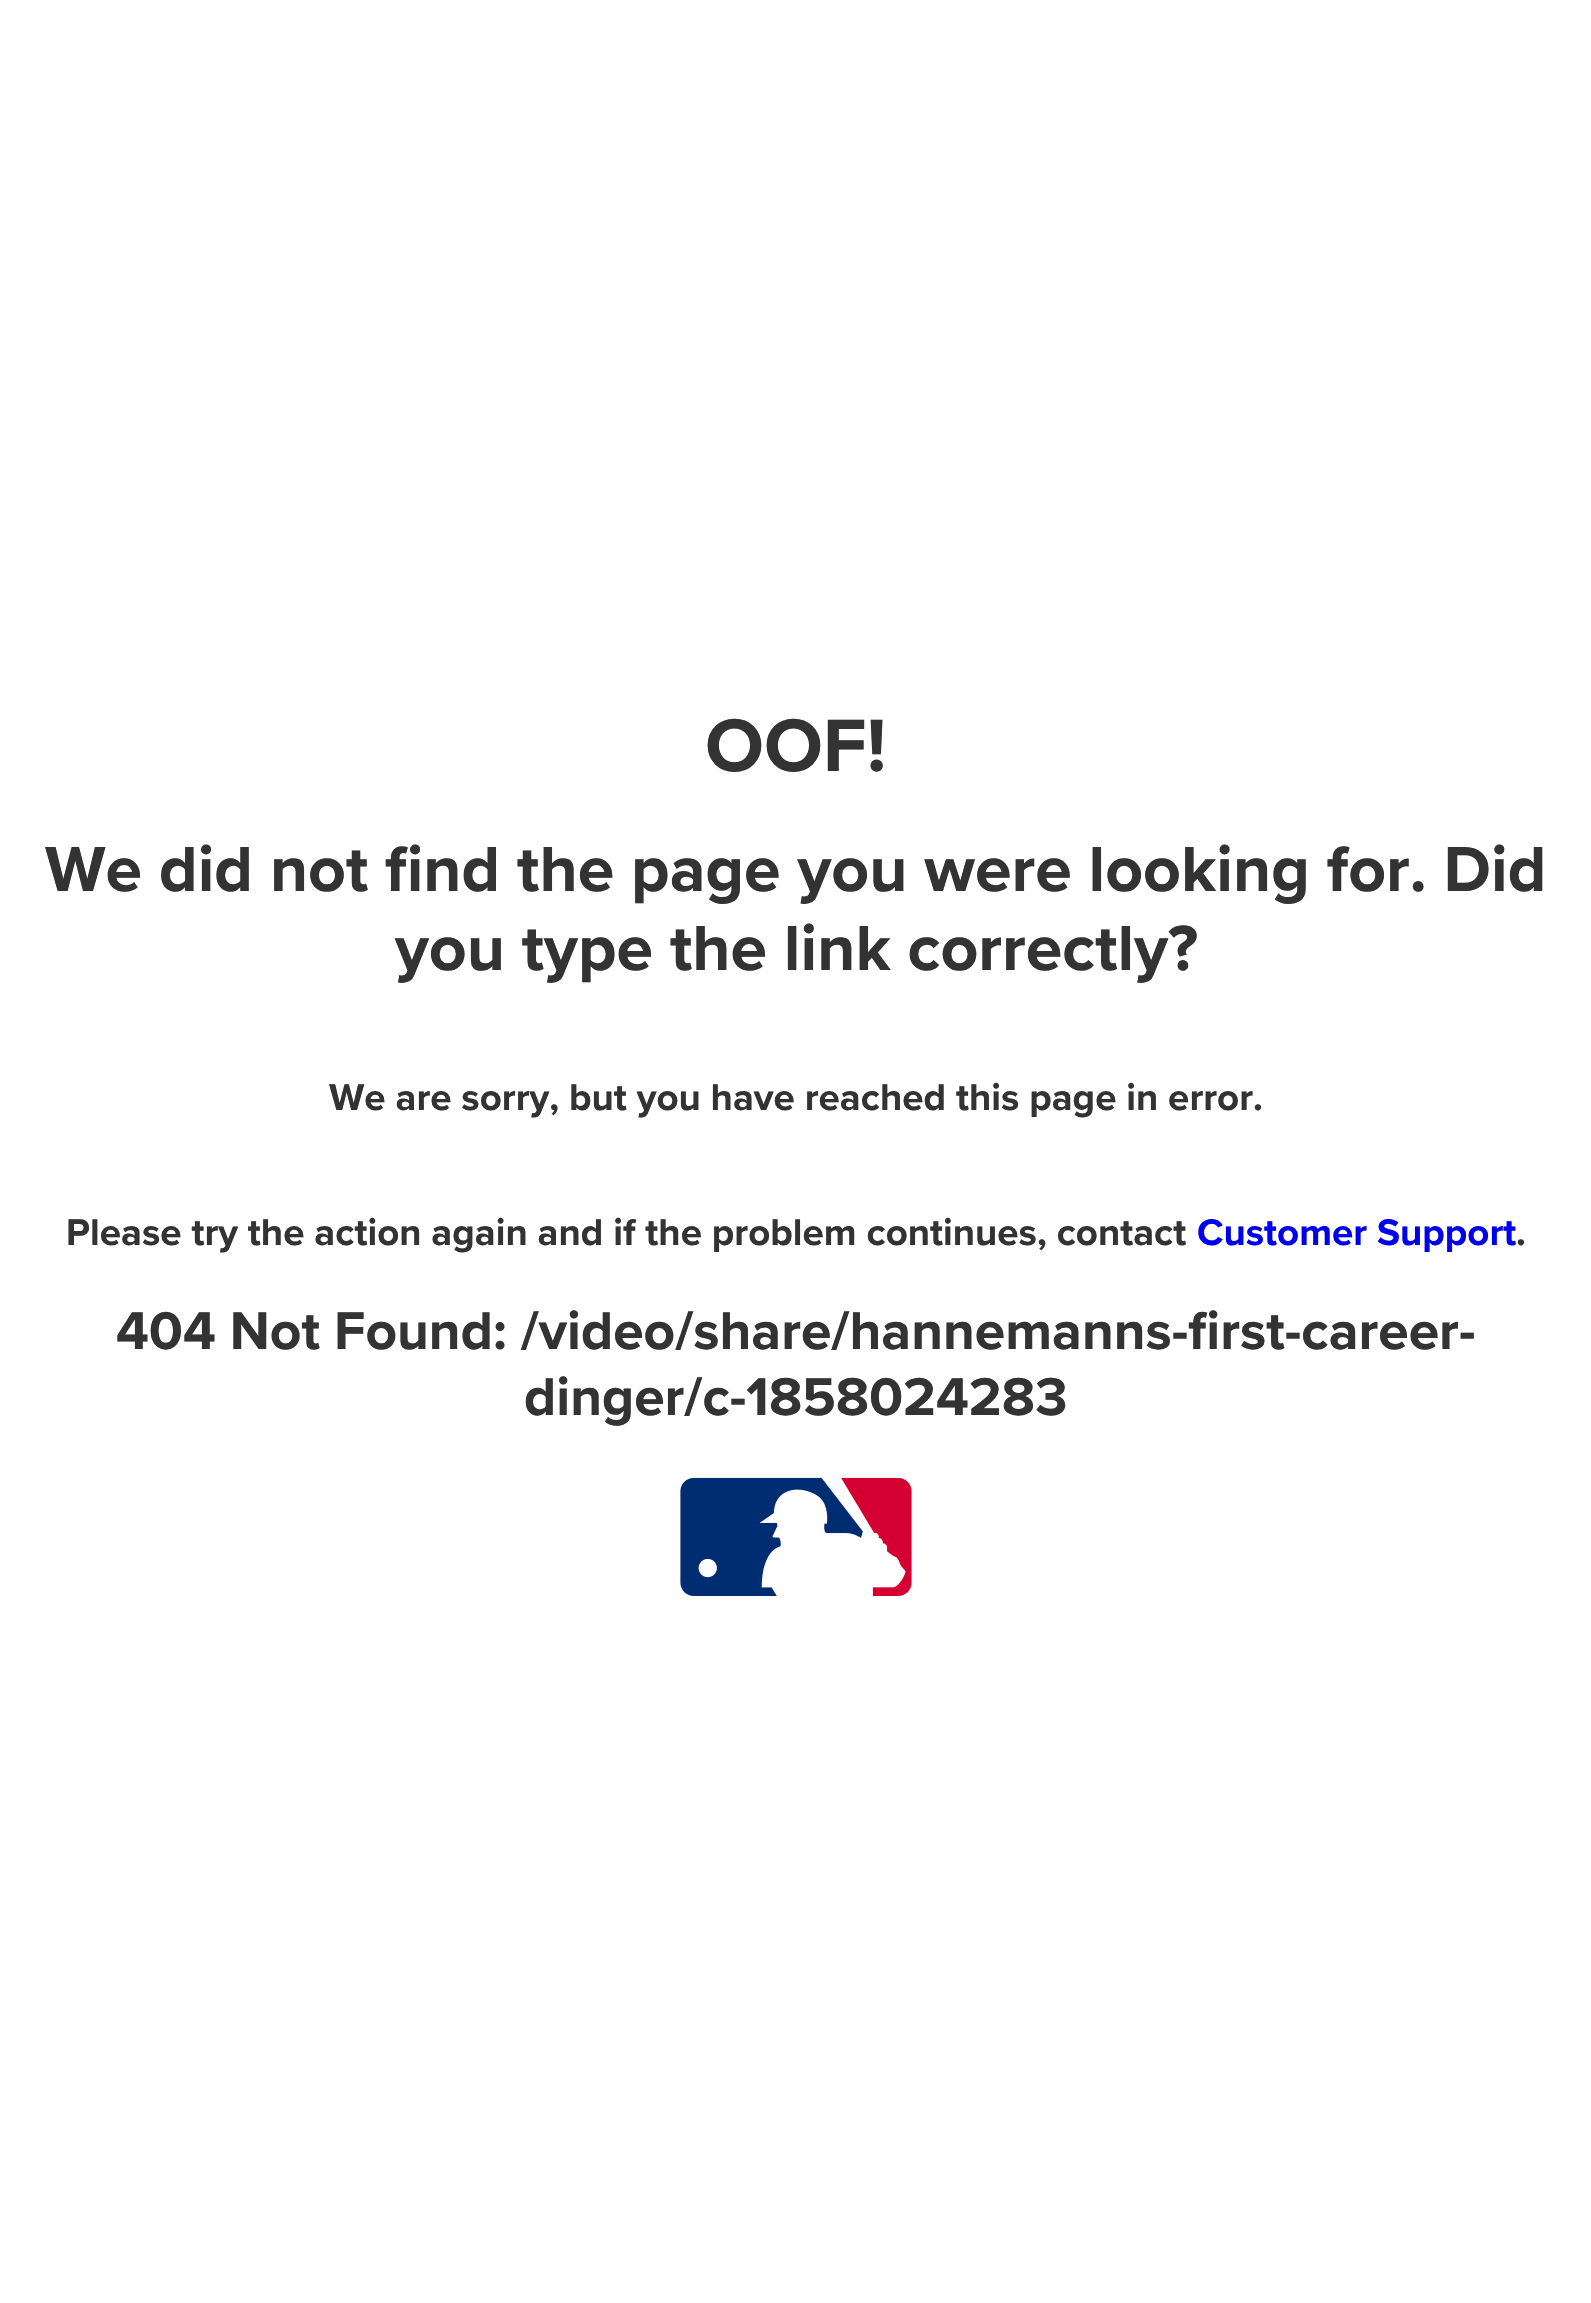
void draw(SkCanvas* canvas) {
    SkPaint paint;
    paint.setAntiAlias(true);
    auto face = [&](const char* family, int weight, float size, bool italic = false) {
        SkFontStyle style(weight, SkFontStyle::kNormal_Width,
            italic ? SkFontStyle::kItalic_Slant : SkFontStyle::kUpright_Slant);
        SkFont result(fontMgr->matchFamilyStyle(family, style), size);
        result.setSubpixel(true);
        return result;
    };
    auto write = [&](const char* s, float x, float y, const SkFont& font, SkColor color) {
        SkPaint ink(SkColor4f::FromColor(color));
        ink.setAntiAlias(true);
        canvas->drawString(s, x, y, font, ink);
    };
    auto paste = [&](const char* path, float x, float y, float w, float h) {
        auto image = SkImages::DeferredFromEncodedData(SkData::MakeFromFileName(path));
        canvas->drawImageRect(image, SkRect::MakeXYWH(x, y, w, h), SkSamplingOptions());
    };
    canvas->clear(SK_ColorWHITE);
    auto kFont1 = face("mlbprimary", 700, 77);
    write("OOF!", 705, 771, kFont1, SkColorSetRGB(51, 51, 51));
    auto kFont2 = face("mlbprimary", 700, 66);
    write("We did not find the page you were looking for. Did", 45, 891, kFont2, SkColorSetRGB(51, 51, 51));
    write("you type the link correctly?", 395, 970, kFont2, SkColorSetRGB(51, 51, 51));
    auto kFont3 = face("mlbprimary", 700, 38.5f);
    write("We are sorry, but you have reached this page in error.", 329, 1110, kFont3, SkColorSetRGB(51, 51, 51));
    write("Please try the action again and if the problem continues, contact", 66, 1245, kFont3, SkColorSetRGB(51, 51, 51));
    write("Customer Support", 1197, 1245, kFont3, SkColorSetRGB(0, 0, 238));
    write(".", 1516, 1245, kFont3, SkColorSetRGB(51, 51, 51));
    auto kFont4 = face("mlbprimary", 700, 55);
    write("404 Not Found: /video/share/hannemanns-first-career-", 116, 1349, kFont4, SkColorSetRGB(51, 51, 51));
    write("dinger/c-1858024283", 524, 1415, kFont4, SkColorSetRGB(51, 51, 51));
    paste("pic1.png", 680, 1477, 232, 119);
}
